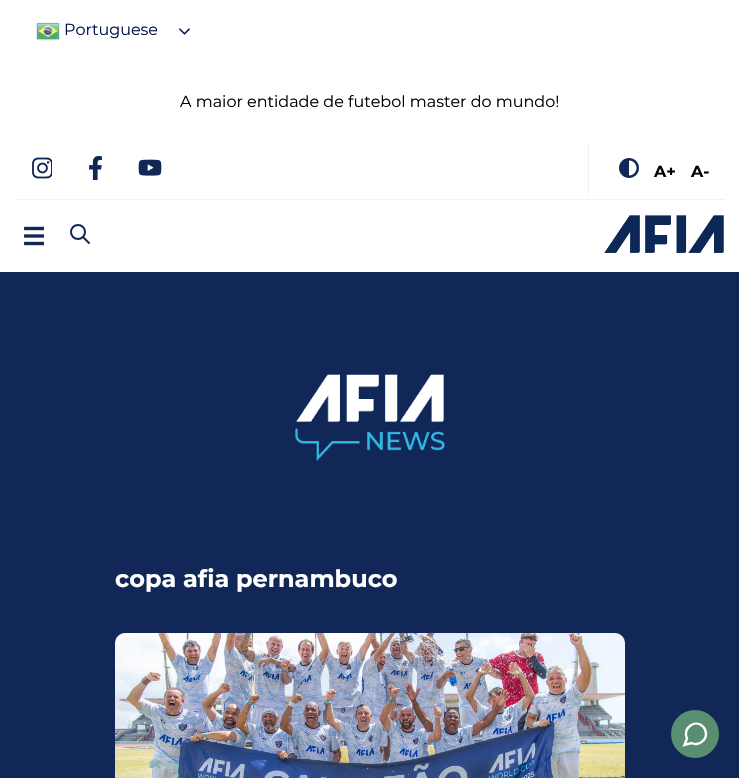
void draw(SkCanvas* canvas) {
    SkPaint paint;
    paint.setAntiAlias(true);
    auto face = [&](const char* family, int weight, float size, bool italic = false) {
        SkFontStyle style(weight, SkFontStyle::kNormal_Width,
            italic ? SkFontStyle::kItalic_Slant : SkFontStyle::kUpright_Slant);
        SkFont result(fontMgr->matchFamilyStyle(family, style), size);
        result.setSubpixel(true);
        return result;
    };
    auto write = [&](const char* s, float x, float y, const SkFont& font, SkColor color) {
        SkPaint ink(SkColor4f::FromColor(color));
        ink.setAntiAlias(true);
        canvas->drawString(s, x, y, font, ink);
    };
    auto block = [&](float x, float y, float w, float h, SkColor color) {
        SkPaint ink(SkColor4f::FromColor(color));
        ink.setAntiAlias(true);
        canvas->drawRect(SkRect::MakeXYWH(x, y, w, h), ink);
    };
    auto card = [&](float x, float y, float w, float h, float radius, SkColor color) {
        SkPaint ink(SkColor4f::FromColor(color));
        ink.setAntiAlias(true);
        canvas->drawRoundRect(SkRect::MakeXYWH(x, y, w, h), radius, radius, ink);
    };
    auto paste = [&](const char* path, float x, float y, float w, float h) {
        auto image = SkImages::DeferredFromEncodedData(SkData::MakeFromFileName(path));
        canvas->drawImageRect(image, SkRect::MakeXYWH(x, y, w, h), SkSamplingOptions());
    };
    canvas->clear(SK_ColorWHITE);
    block(15, 199, 709, 1, SkColorSetRGB(242, 242, 242));
    paste("pic1.png", 36, 22, 24, 19);
    auto kFont1 = face("Montserrat", 100, 16);
    write("Portuguese", 64, 35, kFont1, SkColorSetRGB(4, 19, 75));
    paste("pic2.png", 179, 28, 11, 7);
    write("A maior entidade de futebol master do mundo!", 180, 107, kFont1, SK_ColorBLACK);
    paste("pic3.png", 32, 157, 20, 22);
    paste("pic4.png", 89, 156, 13, 24);
    paste("pic5.png", 138, 159, 24, 17);
    block(588, 143, 1, 54, SkColorSetRGB(242, 242, 242));
    paste("pic6.png", 619, 158, 20, 20);
    auto kFont2 = face("Montserrat", 700, 16);
    write("A+", 654, 177, kFont2, SK_ColorBLACK);
    write("A-", 691, 177, kFont2, SK_ColorBLACK);
    paste("pic7.png", 24, 226, 20, 20);
    paint.setStyle(SkPaint::kStroke_Style);
    paint.setStrokeWidth(2);
    paint.setColor(SkColorSetRGB(16, 39, 87));
    canvas->drawCircle(78, 232, 7, paint);
    paint.setStrokeCap(SkPaint::kRound_Cap);
    paint.setStrokeJoin(SkPaint::kRound_Join);
    canvas->drawPath(SkPathBuilder().moveTo(89, 243).lineTo(83, 237).detach(), paint);
    paste("pic8.png", 604, 215, 120, 38);
    block(0, 272, 739, 506, SkColorSetRGB(16, 39, 87));
    paste("pic9.png", 295, 374, 150, 87);
    auto kFont3 = face("Montserrat", 700, 24);
    write("copa afia pernambuco", 115, 587, kFont3, SK_ColorWHITE);
    card(115, 633, 510, 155, 10, SkColorSetRGB(89, 98, 167));
    paste("pic10.png", 115, 633, 510, 145);
    paint.setStyle(SkPaint::kFill_Style);
    paint.setColor(SkColorSetRGB(89, 142, 113));
    canvas->drawCircle(695, 734, 24, paint);
    paint.setStyle(SkPaint::kStroke_Style);
    paint.setStrokeWidth(2.4f);
    paint.setStrokeCap(SkPaint::kButt_Cap);
    paint.setStrokeJoin(SkPaint::kMiter_Join);
    paint.setColor(SK_ColorWHITE);
    canvas->drawPath(SkPathBuilder().moveTo(706, 734).cubicTo(706, 741, 698, 746, 691.5f, 743).lineTo(684.5f, 745).lineTo(687, 738.5f).cubicTo(682, 728.5f, 695, 718.5f, 703, 726.5f).cubicTo(705, 728.5f, 706, 731, 706, 734).close().detach(), paint);
}
